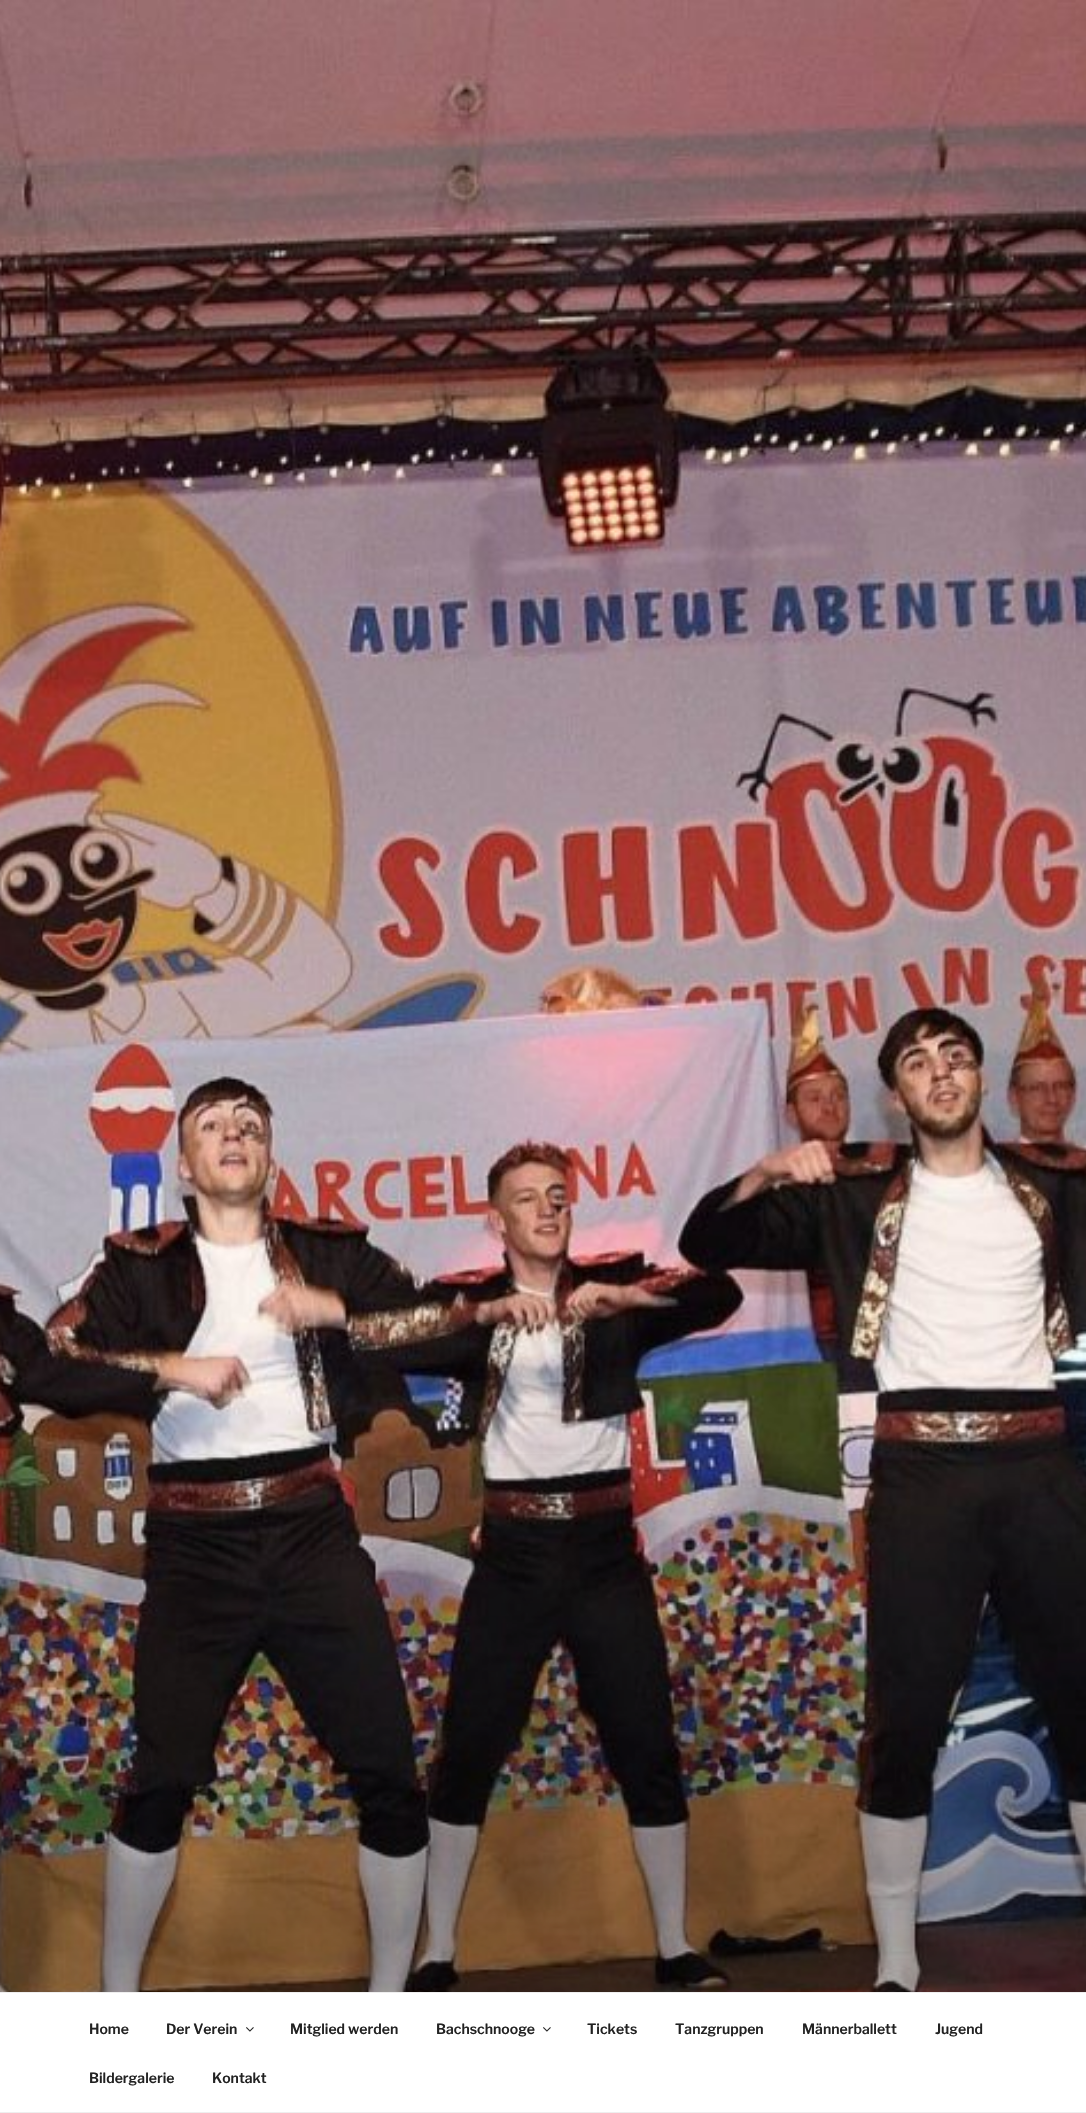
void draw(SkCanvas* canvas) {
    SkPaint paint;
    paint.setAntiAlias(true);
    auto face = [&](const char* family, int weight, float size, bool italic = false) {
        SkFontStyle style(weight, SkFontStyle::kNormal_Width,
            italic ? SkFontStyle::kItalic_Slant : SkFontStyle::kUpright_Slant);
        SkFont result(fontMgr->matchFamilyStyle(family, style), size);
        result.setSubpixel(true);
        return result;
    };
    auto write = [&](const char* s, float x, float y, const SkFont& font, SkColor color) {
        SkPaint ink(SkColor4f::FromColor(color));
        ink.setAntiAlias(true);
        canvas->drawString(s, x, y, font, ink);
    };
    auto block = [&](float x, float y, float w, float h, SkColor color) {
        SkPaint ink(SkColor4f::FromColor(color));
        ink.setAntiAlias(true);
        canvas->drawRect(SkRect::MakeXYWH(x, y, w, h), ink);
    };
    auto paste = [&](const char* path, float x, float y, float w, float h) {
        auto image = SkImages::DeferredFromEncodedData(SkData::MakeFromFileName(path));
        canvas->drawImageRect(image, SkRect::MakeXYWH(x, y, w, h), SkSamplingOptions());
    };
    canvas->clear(SK_ColorWHITE);
    paste("pic1.png", 0, 0, 1086, 1992);
    {
        const SkColor colors[] = {SkColorSetARGB(0, 0, 0, 0), SkColorSetARGB(77, 0, 0, 0), SkColorSetARGB(77, 0, 0, 0)};
        const float stops[] = {0, 0.75f, 1};
        const SkPoint ends[] = {{543, 1416}, {543, 2113}};
        paint.setShader(SkGradientShader::MakeLinear(ends, colors, stops, 3, SkTileMode::kClamp));
        paint.setAlpha(255);
    }
    canvas->drawRect(SkRect::MakeXYWH(0, 1454, 1086, 538), paint);
    block(0, 1992, 1086, 1, SkColorSetRGB(238, 238, 238));
    block(0, 2112, 1086, 1, SkColorSetRGB(238, 238, 238));
    auto kFont1 = face("Libre Franklin", 100, 14);
    write("Home", 89, 2034, kFont1, SkColorSetRGB(34, 34, 34));
    write("Der Verein", 166, 2034, kFont1, SkColorSetRGB(34, 34, 34));
    paste("pic2.png", 246, 2027, 8, 5);
    write("Mitglied werden", 290, 2034, kFont1, SkColorSetRGB(34, 34, 34));
    write("Bachschnooge", 436, 2034, kFont1, SkColorSetRGB(34, 34, 34));
    paste("pic2.png", 543, 2027, 8, 5);
    write("Tickets", 587, 2034, kFont1, SkColorSetRGB(34, 34, 34));
    write("Tanzgruppen", 675, 2034, kFont1, SkColorSetRGB(34, 34, 34));
    write("Männerballett", 802, 2034, kFont1, SkColorSetRGB(34, 34, 34));
    write("Jugend", 935, 2034, kFont1, SkColorSetRGB(34, 34, 34));
    write("Bildergalerie", 89, 2083, kFont1, SkColorSetRGB(34, 34, 34));
    write("Kontakt", 212, 2083, kFont1, SkColorSetRGB(34, 34, 34));
}
